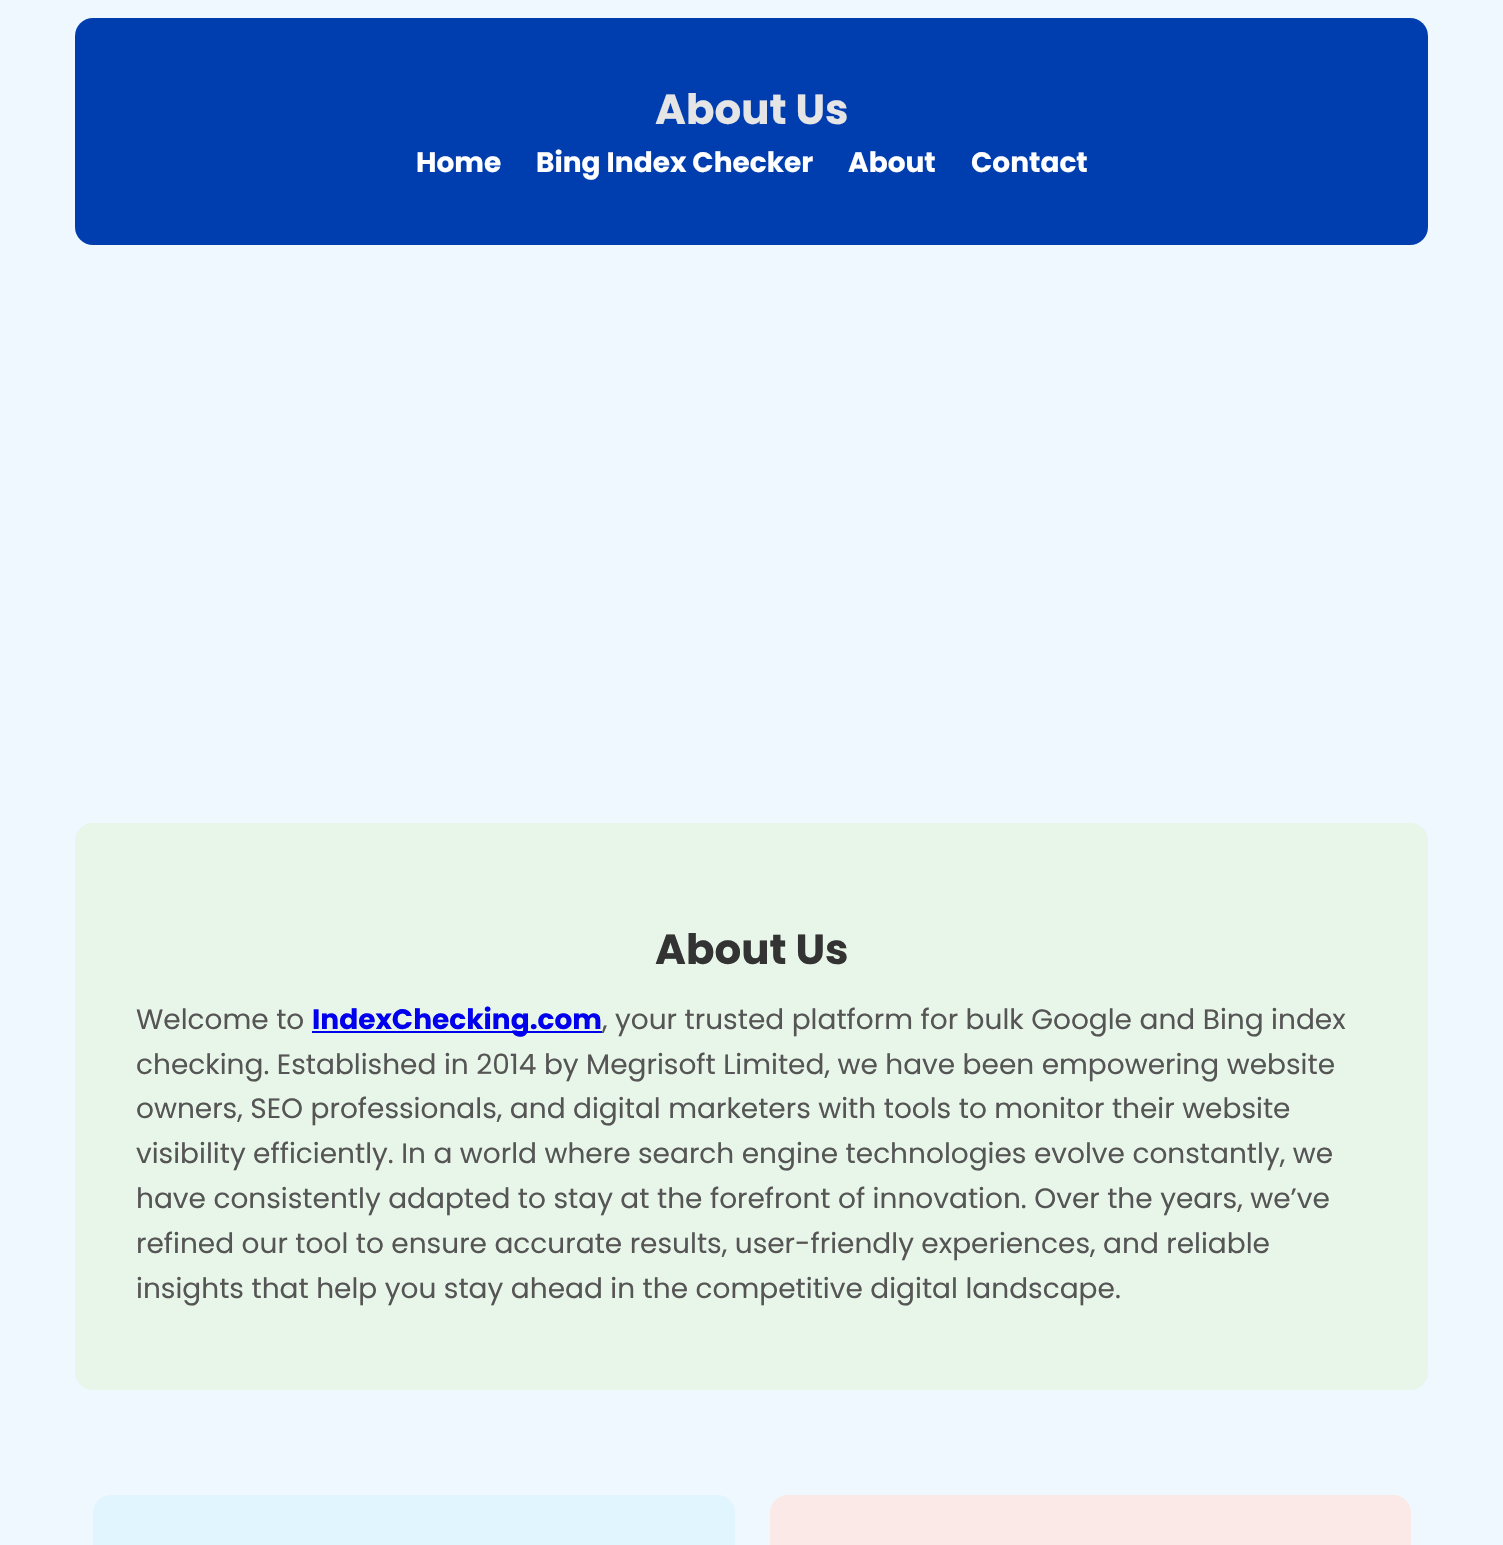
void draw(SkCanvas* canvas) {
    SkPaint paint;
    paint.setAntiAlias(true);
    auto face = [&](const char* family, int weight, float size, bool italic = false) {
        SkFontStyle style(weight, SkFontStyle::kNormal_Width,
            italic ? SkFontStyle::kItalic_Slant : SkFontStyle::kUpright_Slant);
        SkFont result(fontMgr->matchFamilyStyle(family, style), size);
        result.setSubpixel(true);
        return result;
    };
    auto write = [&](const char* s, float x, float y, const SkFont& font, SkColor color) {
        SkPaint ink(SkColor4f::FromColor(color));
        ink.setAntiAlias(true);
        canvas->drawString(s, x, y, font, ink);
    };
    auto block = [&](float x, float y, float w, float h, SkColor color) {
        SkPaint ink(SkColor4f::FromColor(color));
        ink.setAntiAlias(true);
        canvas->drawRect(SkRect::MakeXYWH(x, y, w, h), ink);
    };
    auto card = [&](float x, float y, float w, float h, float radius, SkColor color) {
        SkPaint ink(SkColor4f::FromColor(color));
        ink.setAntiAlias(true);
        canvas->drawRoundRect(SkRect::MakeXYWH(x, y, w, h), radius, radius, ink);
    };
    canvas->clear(SkColorSetRGB(240, 248, 255));
    card(75, 18, 1353, 227, 18, SkColorSetRGB(0, 62, 175));
    auto kFont1 = face("Poppins", 700, 42);
    write("About Us", 655, 124, kFont1, SkColorSetRGB(229, 229, 229));
    auto kFont2 = face("Poppins", 700, 28);
    write("Home", 416, 172, kFont2, SK_ColorWHITE);
    write("Bing Index Checker", 536, 172, kFont2, SK_ColorWHITE);
    write("About", 848, 172, kFont2, SK_ColorWHITE);
    write("Contact", 971, 172, kFont2, SK_ColorWHITE);
    card(75, 823, 1353, 567, 18, SkColorSetRGB(232, 245, 233));
    write("About Us", 655, 964, kFont1, SkColorSetRGB(51, 51, 51));
    auto kFont3 = face("Poppins", 400, 28);
    write("Welcome to", 136, 1029, kFont3, SkColorSetRGB(85, 85, 85));
    block(312, 1031, 290, 2, SkColorSetRGB(0, 0, 238));
    write("IndexChecking.com", 312, 1029, kFont2, SkColorSetRGB(0, 0, 238));
    write(", your trusted platform for bulk Google and Bing index", 602, 1029, kFont3, SkColorSetRGB(85, 85, 85));
    write("checking. Established in 2014 by Megrisoft Limited, we have been empowering website", 136, 1074, kFont3, SkColorSetRGB(85, 85, 85));
    write("owners, SEO professionals, and digital marketers with tools to monitor their website", 136, 1118, kFont3, SkColorSetRGB(85, 85, 85));
    write("visibility efficiently. In a world where search engine technologies evolve constantly, we", 136, 1163, kFont3, SkColorSetRGB(85, 85, 85));
    write("have consistently adapted to stay at the forefront of innovation. Over the years, we’ve", 136, 1208, kFont3, SkColorSetRGB(85, 85, 85));
    write("refined our tool to ensure accurate results, user-friendly experiences, and reliable", 136, 1253, kFont3, SkColorSetRGB(85, 85, 85));
    write("insights that help you stay ahead in the competitive digital landscape.", 136, 1298, kFont3, SkColorSetRGB(85, 85, 85));
    card(93, 1495, 642, 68, 18, SkColorSetRGB(225, 245, 254));
    card(770, 1495, 641, 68, 18, SkColorSetRGB(251, 233, 231));
}
